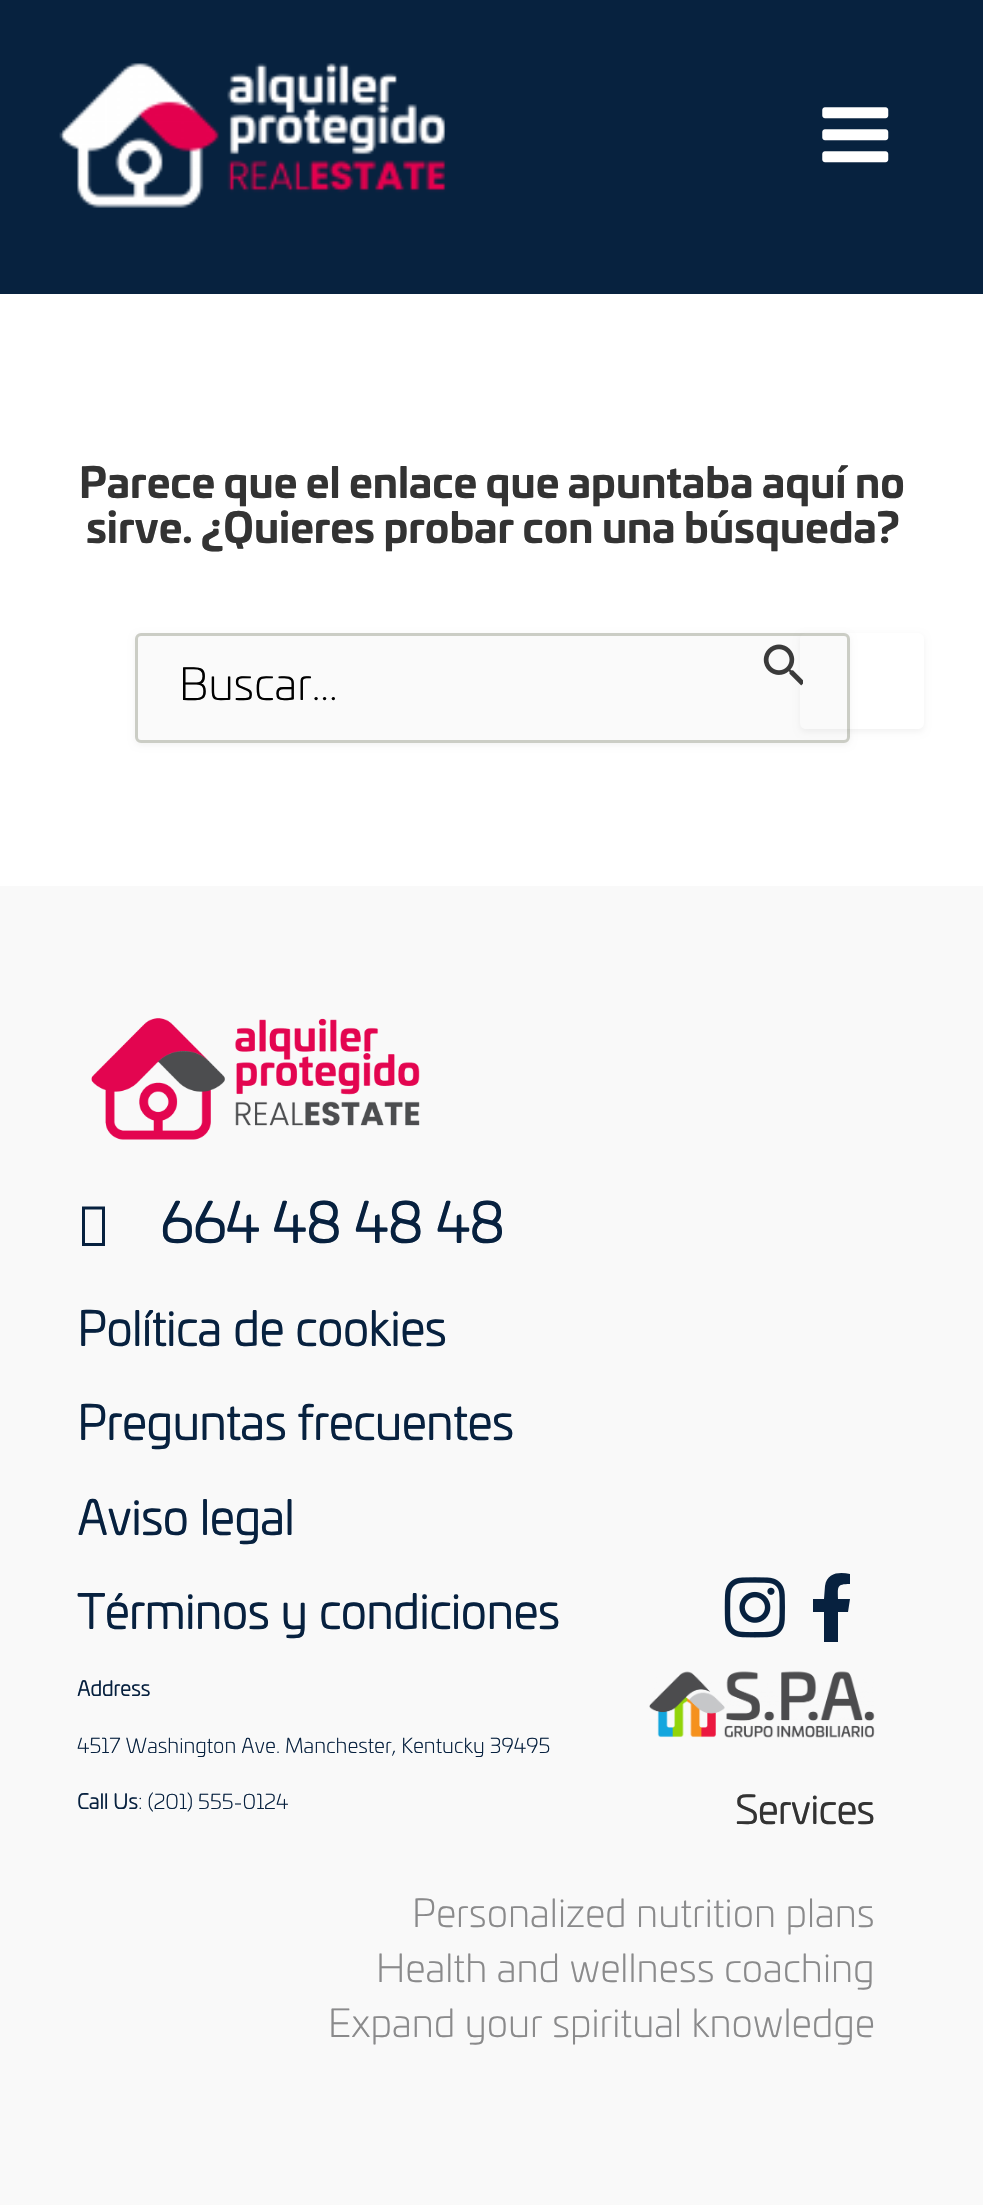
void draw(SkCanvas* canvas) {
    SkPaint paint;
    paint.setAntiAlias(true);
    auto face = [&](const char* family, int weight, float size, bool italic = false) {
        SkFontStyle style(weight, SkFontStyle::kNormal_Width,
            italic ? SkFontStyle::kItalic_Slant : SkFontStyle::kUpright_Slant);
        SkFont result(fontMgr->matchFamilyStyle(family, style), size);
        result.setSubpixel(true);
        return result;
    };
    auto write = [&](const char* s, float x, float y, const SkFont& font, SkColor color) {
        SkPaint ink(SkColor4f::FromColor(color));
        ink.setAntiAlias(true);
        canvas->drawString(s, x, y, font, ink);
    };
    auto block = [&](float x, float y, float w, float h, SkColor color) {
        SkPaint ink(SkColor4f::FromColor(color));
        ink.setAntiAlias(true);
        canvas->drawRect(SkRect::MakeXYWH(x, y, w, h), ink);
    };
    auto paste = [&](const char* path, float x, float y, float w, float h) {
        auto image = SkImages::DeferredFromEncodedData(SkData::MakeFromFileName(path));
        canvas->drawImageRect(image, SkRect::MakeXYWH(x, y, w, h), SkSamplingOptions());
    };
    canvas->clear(SK_ColorWHITE);
    block(0, 0, 983, 294, SkColorSetRGB(7, 34, 63));
    paste("pic1.png", 59, 63, 388, 145);
    paste("pic2.png", 822, 107, 67, 56);
    auto kFont1 = face("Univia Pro", 700, 41.25f);
    write("Parece que el enlace que apuntaba aquí no", 79, 498, kFont1, SkColorSetRGB(51, 51, 51));
    write("sirve. ¿Quieres probar con una búsqueda?", 86, 543, kFont1, SkColorSetRGB(51, 51, 51));
    paint.setColor(SkColorSetARGB(13, 0, 0, 0));
    paint.setMaskFilter(SkMaskFilter::MakeBlur(kNormal_SkBlurStyle, 3));
    canvas->drawRoundRect(SkRect::MakeXYWH(135, 635, 715, 110), 6, 6, paint);
    paint.setMaskFilter(nullptr);
    paint.setColor(SkColorSetRGB(250, 250, 250));
    canvas->drawRoundRect(SkRect::MakeXYWH(136.5f, 634.5f, 712, 107), 4.5f, 4.5f, paint);
    paint.setStyle(SkPaint::kStroke_Style);
    paint.setStrokeWidth(3);
    paint.setColor(SkColorSetRGB(203, 205, 197));
    canvas->drawRoundRect(SkRect::MakeXYWH(136.5f, 634.5f, 712, 107), 4.5f, 4.5f, paint);
    auto kFont2 = face("Univia Pro", 300, 44);
    write("Buscar...", 179, 700, kFont2, SK_ColorBLACK);
    paste("pic3.png", 763, 644, 40, 42);
    canvas->save();
    canvas->clipPath(SkPathBuilder(SkPathFillType::kEvenOdd).moveTo(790, 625).lineTo(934, 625).lineTo(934, 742).lineTo(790, 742).close().moveTo(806, 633).lineTo(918, 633).cubicTo(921.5f, 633, 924, 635.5f, 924, 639).lineTo(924, 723).cubicTo(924, 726.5f, 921.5f, 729, 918, 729).lineTo(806, 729).cubicTo(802.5f, 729, 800, 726.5f, 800, 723).lineTo(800, 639).cubicTo(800, 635.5f, 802.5f, 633, 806, 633).close().detach(), true);
    paint.setStyle(SkPaint::kFill_Style);
    paint.setColor(SkColorSetARGB(13, 0, 0, 0));
    paint.setMaskFilter(SkMaskFilter::MakeBlur(kNormal_SkBlurStyle, 3));
    canvas->drawRoundRect(SkRect::MakeXYWH(800, 635, 124, 97), 6, 6, paint);
    paint.setMaskFilter(nullptr);
    canvas->restore();
    block(0, 886, 983, 1319, SkColorSetRGB(249, 249, 249));
    paste("pic4.png", 91, 1018, 329, 122);
    paint.setColor(SkColorSetRGB(7, 33, 63));
    canvas->drawPath(SkPathBuilder().moveTo(82, 1246).lineTo(82, 1206.5f).lineTo(105, 1206.5f).lineTo(105, 1246).close().moveTo(85, 1243).lineTo(102, 1243).lineTo(102, 1209.5f).lineTo(85, 1209.5f).close().detach(), paint);
    auto kFont3 = face("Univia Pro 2", 700, 55);
    write("664 48 48 48", 160, 1243, kFont3, SkColorSetRGB(7, 33, 63));
    auto kFont4 = face("Univia Pro 2", 700, 46.75f);
    write("Política de cookies", 77, 1346, kFont4, SkColorSetRGB(7, 33, 63));
    write("Preguntas frecuentes", 77, 1440, kFont4, SkColorSetRGB(7, 33, 63));
    write("Aviso legal", 77, 1535, kFont4, SkColorSetRGB(7, 33, 63));
    write("Términos y condiciones", 77, 1629, kFont4, SkColorSetRGB(7, 33, 63));
    auto kFont5 = face("Univia Pro 2", 700, 20.6f);
    write("Address", 77, 1696, kFont5, SkColorSetRGB(7, 33, 63));
    auto kFont6 = face("Univia Pro", 300, 20.6f);
    write("4517 Washington Ave. Manchester, Kentucky 39495", 77, 1753, kFont6, SkColorSetRGB(7, 33, 63));
    write("Call Us", 77, 1809, kFont5, SkColorSetRGB(7, 33, 63));
    write(": (201) 555-0124", 138, 1809, kFont6, SkColorSetRGB(7, 33, 63));
    paste("pic5.png", 724, 1577, 61, 61);
    canvas->drawPath(SkPathBuilder().moveTo(848, 1612).lineTo(850, 1599).lineTo(838, 1599).cubicTo(838, 1587, 836, 1584, 850, 1584).lineTo(850, 1574).cubicTo(840, 1572, 827, 1572, 825, 1586).lineTo(824, 1599).lineTo(813, 1599).lineTo(813, 1612).lineTo(824, 1612).lineTo(824, 1642).lineTo(838, 1642).lineTo(838, 1612).close().detach(), paint);
    paste("pic6.png", 649, 1671, 226, 67);
    auto kFont7 = face("Univia Pro 2", 700, 38.5f);
    write("Services", 735, 1824, kFont7, SkColorSetRGB(51, 51, 51));
    auto kFont8 = face("Univia Pro", 300, 38.5f);
    write("Personalized nutrition plans", 412, 1927, kFont8, SkColorSetRGB(138, 138, 139));
    write("Health and wellness coaching", 376, 1982, kFont8, SkColorSetRGB(138, 138, 139));
    write("Expand your spiritual knowledge", 328, 2037, kFont8, SkColorSetRGB(138, 138, 139));
}
